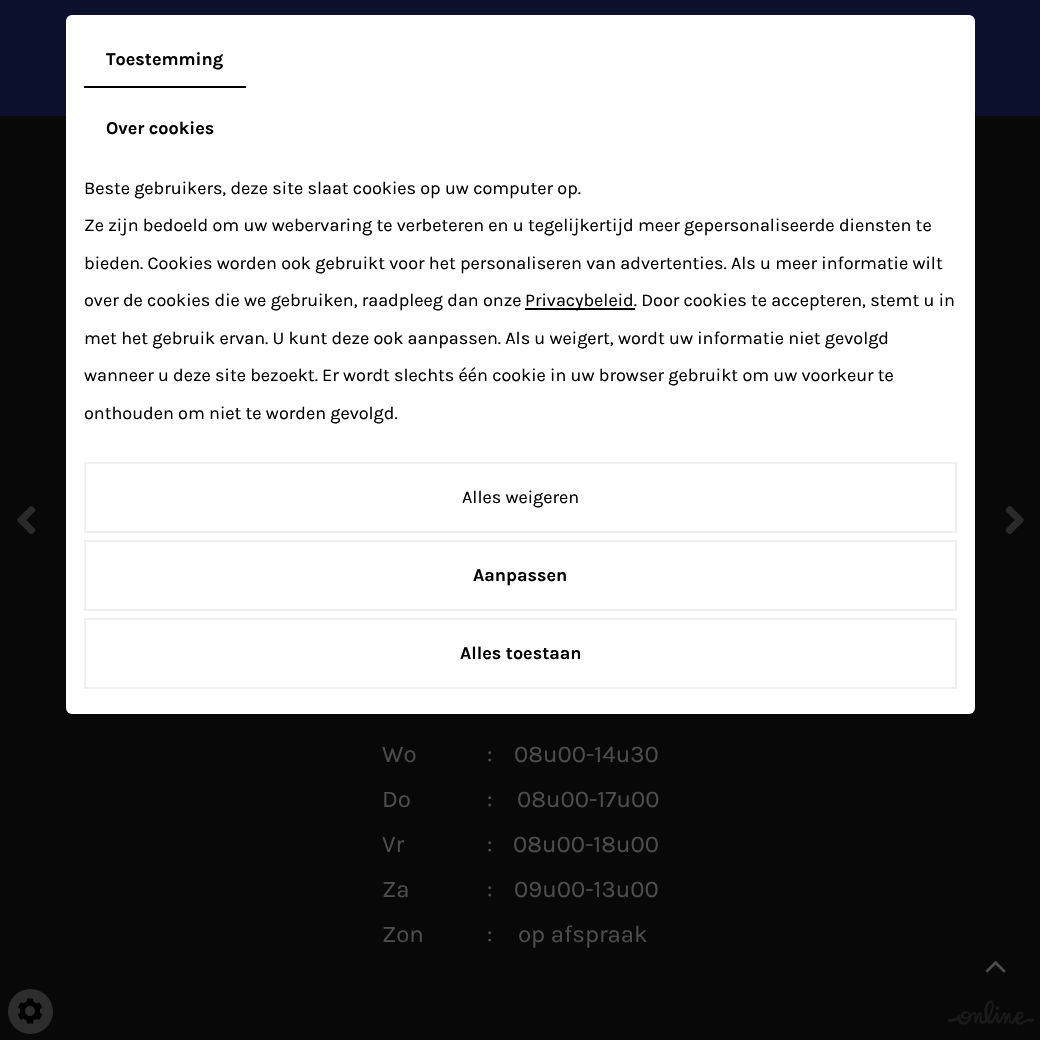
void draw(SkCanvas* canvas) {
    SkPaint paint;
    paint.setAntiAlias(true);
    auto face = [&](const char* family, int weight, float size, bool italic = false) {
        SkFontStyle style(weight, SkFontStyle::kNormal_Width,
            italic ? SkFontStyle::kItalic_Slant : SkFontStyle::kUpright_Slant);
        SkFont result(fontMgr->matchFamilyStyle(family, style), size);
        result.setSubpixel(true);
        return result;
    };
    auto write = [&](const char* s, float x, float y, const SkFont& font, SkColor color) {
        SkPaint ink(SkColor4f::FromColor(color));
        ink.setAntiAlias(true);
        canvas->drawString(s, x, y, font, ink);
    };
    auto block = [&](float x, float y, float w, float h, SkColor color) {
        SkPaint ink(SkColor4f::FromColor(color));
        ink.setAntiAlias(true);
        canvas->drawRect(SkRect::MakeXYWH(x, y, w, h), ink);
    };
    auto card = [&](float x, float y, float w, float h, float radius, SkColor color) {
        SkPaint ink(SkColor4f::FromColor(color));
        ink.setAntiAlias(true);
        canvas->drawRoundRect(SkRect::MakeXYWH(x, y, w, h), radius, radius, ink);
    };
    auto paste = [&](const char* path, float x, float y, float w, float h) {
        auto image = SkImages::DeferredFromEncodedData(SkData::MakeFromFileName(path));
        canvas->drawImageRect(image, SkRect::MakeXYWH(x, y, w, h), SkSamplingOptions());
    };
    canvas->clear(SkColorSetRGB(8, 8, 8));
    block(0, 0, 1040, 116, SkColorSetRGB(13, 16, 44));
    card(66, 15, 909, 699, 6, SK_ColorWHITE);
    block(84, 86, 162, 2, SK_ColorBLACK);
    auto kFont1 = face("Karla", 700, 18);
    write("Toestemming", 106, 65, kFont1, SK_ColorBLACK);
    write("Over cookies", 106, 134, kFont1, SK_ColorBLACK);
    auto kFont2 = face("Karla", 400, 18);
    write("Beste gebruikers, deze site slaat cookies op uw computer op.", 84, 194, kFont2, SK_ColorBLACK);
    write("Ze zijn bedoeld om uw webervaring te verbeteren en u tegelijkertijd meer gepersonaliseerde diensten te", 84, 231, kFont2, SK_ColorBLACK);
    write("bieden. Cookies worden ook gebruikt voor het personaliseren van advertenties. Als u meer informatie wilt", 84, 269, kFont2, SK_ColorBLACK);
    write("over de cookies die we gebruiken, raadpleeg dan onze", 84, 306, kFont2, SK_ColorBLACK);
    block(525, 308, 110, 2, SK_ColorBLACK);
    write("Privacybeleid. Door cookies te accepteren, stemt u in", 525, 306, kFont2, SK_ColorBLACK);
    write("met het gebruik ervan. U kunt deze ook aanpassen. Als u weigert, wordt uw informatie niet gevolgd", 84, 344, kFont2, SK_ColorBLACK);
    write("wanneer u deze site bezoekt. Er wordt slechts één cookie in uw browser gebruikt om uw voorkeur te", 84, 381, kFont2, SK_ColorBLACK);
    write("onthouden om niet te worden gevolgd.", 84, 419, kFont2, SK_ColorBLACK);
    paint.setStyle(SkPaint::kStroke_Style);
    paint.setStrokeWidth(2);
    paint.setColor(SkColorSetRGB(240, 240, 240));
    canvas->drawRect(SkRect::MakeXYWH(85, 463, 871, 69), paint);
    write("Alles weigeren", 462, 503, kFont2, SK_ColorBLACK);
    canvas->drawRect(SkRect::MakeXYWH(85, 541, 871, 69), paint);
    write("Aanpassen", 473, 581, kFont1, SK_ColorBLACK);
    canvas->drawRect(SkRect::MakeXYWH(85, 619, 871, 69), paint);
    write("Alles toestaan", 460, 659, kFont1, SK_ColorBLACK);
    paste("pic1.png", 17, 506, 19, 29);
    paste("pic2.png", 1005, 506, 19, 29);
    auto kFont3 = face("Karla", 400, 24);
    write("Wo", 382, 762, kFont3, SkColorSetRGB(77, 77, 77));
    write(":", 487, 762, kFont3, SkColorSetRGB(77, 77, 77));
    write("08u00-14u30", 514, 762, kFont3, SkColorSetRGB(77, 77, 77));
    write("Do", 382, 807, kFont3, SkColorSetRGB(77, 77, 77));
    write(":", 487, 807, kFont3, SkColorSetRGB(77, 77, 77));
    write("08u00-17u00", 517, 807, kFont3, SkColorSetRGB(77, 77, 77));
    write("Vr", 382, 852, kFont3, SkColorSetRGB(77, 77, 77));
    write(":", 487, 852, kFont3, SkColorSetRGB(77, 77, 77));
    write("08u00-18u00", 513, 852, kFont3, SkColorSetRGB(77, 77, 77));
    write("Za", 382, 897, kFont3, SkColorSetRGB(77, 77, 77));
    write(":", 487, 897, kFont3, SkColorSetRGB(77, 77, 77));
    write("09u00-13u00", 514, 897, kFont3, SkColorSetRGB(77, 77, 77));
    write("Zon", 382, 942, kFont3, SkColorSetRGB(77, 77, 77));
    write(":", 487, 942, kFont3, SkColorSetRGB(77, 77, 77));
    write("op afspraak", 518, 942, kFont3, SkColorSetRGB(77, 77, 77));
    paste("pic3.png", 985, 961, 21, 12);
    paint.setStyle(SkPaint::kFill_Style);
    paint.setColor(SkColorSetRGB(45, 45, 45));
    canvas->drawCircle(30.5f, 1011.5f, 22.5f, paint);
    paste("pic4.png", 17, 998, 26, 26);
    paste("pic5.png", 948, 1000, 86, 25);
}
